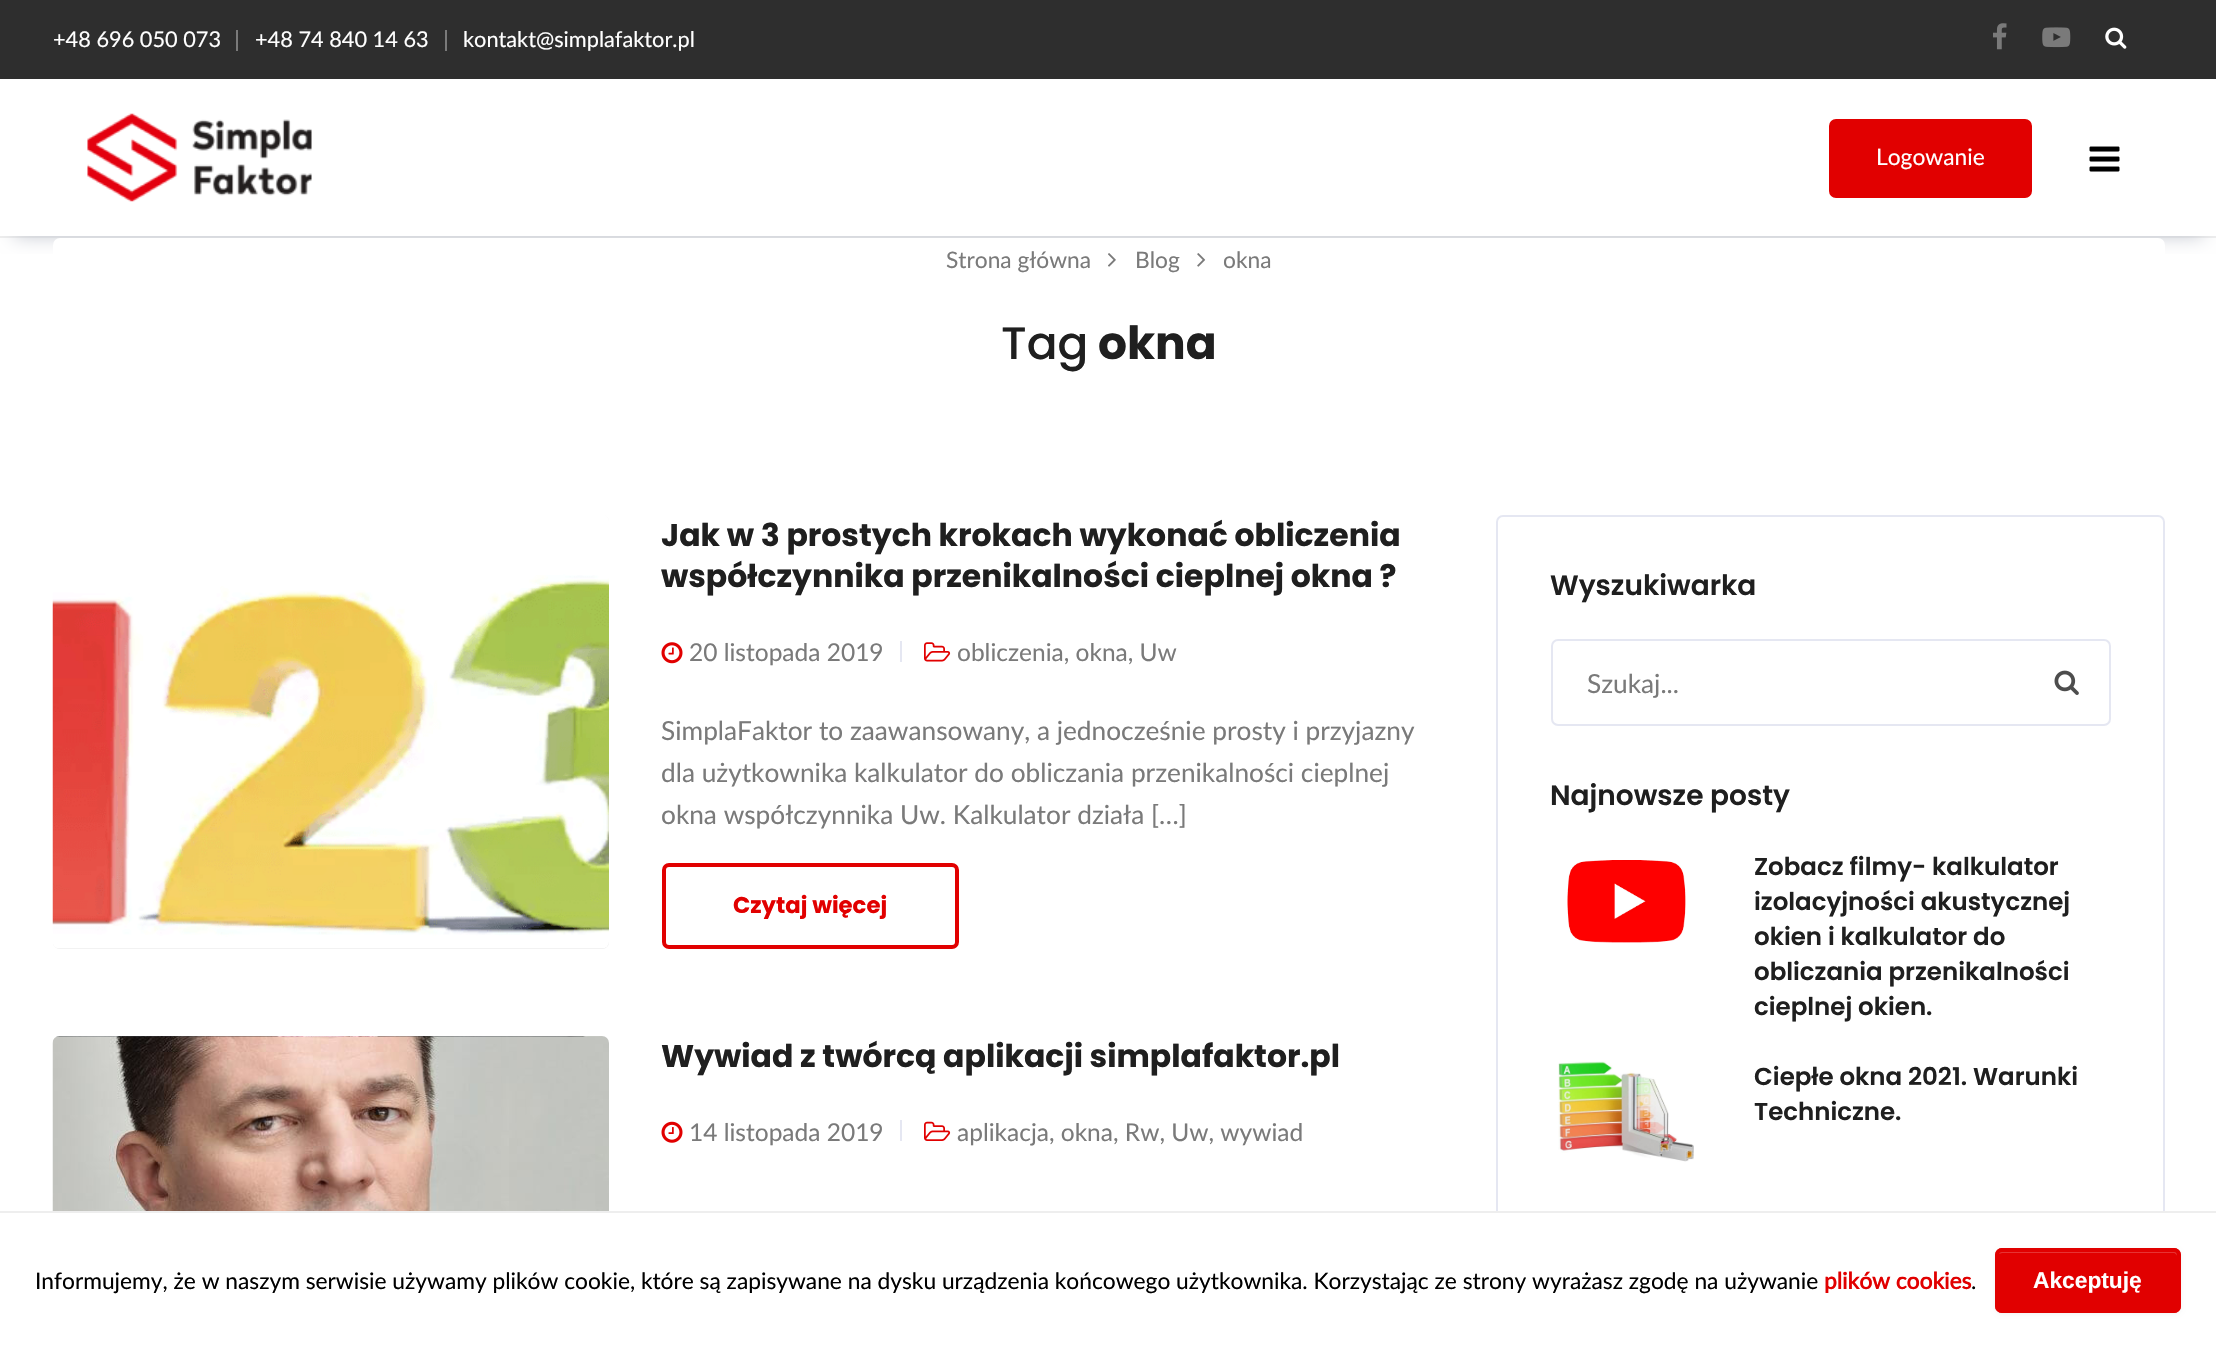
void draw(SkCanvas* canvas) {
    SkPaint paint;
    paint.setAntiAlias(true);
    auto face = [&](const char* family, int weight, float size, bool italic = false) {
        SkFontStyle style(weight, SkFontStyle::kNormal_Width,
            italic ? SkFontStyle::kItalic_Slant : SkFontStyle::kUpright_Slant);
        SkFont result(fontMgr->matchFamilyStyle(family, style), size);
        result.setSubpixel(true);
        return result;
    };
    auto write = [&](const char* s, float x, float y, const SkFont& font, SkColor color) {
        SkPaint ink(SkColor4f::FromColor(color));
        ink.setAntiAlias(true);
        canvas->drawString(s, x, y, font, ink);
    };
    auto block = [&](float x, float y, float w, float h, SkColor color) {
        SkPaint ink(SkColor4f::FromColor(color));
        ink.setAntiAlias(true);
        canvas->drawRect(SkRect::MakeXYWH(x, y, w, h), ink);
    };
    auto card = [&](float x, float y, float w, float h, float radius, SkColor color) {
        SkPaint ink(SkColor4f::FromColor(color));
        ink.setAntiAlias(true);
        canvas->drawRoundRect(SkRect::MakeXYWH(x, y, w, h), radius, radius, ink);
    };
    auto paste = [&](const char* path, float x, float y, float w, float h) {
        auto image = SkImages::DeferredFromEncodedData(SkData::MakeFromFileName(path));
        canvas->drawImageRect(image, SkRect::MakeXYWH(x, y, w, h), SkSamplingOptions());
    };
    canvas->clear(SK_ColorWHITE);
    block(0, 236, 2216, 2, SkColorSetRGB(238, 238, 238));
    block(0, 0, 2216, 79, SkColorSetRGB(46, 46, 46));
    auto kFont1 = face("Lato", 400, 21.75f);
    write("+48 696 050 073", 53, 47, kFont1, SK_ColorWHITE);
    block(236, 30, 2, 21, SkColorSetRGB(122, 122, 122));
    write("+48 74 840 14 63", 255, 47, kFont1, SK_ColorWHITE);
    block(445, 30, 2, 21, SkColorSetRGB(122, 122, 122));
    write("kontakt@simplafaktor.pl", 463, 47, kFont1, SK_ColorWHITE);
    paste("pic1.png", 1993, 23, 14, 27);
    paste("pic2.png", 2042, 27, 29, 21);
    paste("pic3.png", 2105, 27, 22, 22);
    canvas->save();
    canvas->clipRect(SkRect::MakeXYWH(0, 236, 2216, 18));
    paint.setColor(SkColorSetRGB(194, 198, 207));
    paint.setMaskFilter(SkMaskFilter::MakeBlur(kNormal_SkBlurStyle, 9));
    canvas->drawRect(SkRect::MakeXYWH(14, 107, 2189, 129), paint);
    paint.setMaskFilter(nullptr);
    canvas->restore();
    paste("pic4.png", 87, 113, 225, 89);
    paint.setColor(SkColorSetRGB(225, 0, 0));
    canvas->drawRoundRect(SkRect::MakeXYWH(1831, 121, 199, 75), 5, 5, paint);
    paint.setStyle(SkPaint::kStroke_Style);
    paint.setStrokeWidth(4);
    canvas->drawRoundRect(SkRect::MakeXYWH(1831, 121, 199, 75), 5, 5, paint);
    auto kFont2 = face("Lato", 400, 22.75f);
    write("Logowanie", 1876, 165, kFont2, SK_ColorWHITE);
    paste("pic5.png", 2089, 146, 31, 26);
    card(53, 238, 2112, 42, 7, SK_ColorWHITE);
    write("Strona główna", 946, 268, kFont2, SkColorSetRGB(122, 122, 122));
    paste("pic6.png", 1108, 253, 8, 14);
    write("Blog", 1135, 268, kFont2, SkColorSetRGB(122, 122, 122));
    paste("pic7.png", 1197, 253, 9, 14);
    write("okna", 1223, 268, kFont2, SkColorSetRGB(122, 122, 122));
    auto kFont3 = face("Poppins", 500, 45.5f);
    write("Tag", 1001, 359, kFont3, SkColorSetRGB(31, 31, 31));
    auto kFont4 = face("Poppins", 700, 45.5f);
    write("okna", 1098, 359, kFont4, SkColorSetRGB(31, 31, 31));
    card(53, 515, 556, 434, 7, SkColorSetRGB(238, 238, 238));
    paste("pic8.png", 52, 515, 557, 434);
    auto kFont5 = face("Poppins", 700, 31.5f);
    write("Jak w 3 prostych krokach wykonać obliczenia", 661, 546, kFont5, SkColorSetRGB(31, 31, 31));
    write("współczynnika przenikalności cieplnej okna ?", 661, 587, kFont5, SkColorSetRGB(31, 31, 31));
    paste("pic9.png", 661, 642, 22, 22);
    auto kFont6 = face("Lato", 400, 24.5f);
    write("20 listopada 2019", 689, 661, kFont6, SkColorSetRGB(122, 122, 122));
    block(900, 641, 2, 21, SkColorSetRGB(229, 231, 242));
    paste("pic10.png", 924, 642, 27, 20);
    write("obliczenia, okna, Uw", 957, 661, kFont6, SkColorSetRGB(122, 122, 122));
    auto kFont7 = face("Lato", 400, 26.25f);
    write("SimplaFaktor to zaawansowany, a jednocześnie prosty i przyjazny", 661, 740, kFont7, SkColorSetRGB(122, 122, 122));
    write("dla użytkownika kalkulator do obliczania przenikalności cieplnej", 661, 782, kFont7, SkColorSetRGB(122, 122, 122));
    write("okna współczynnika Uw. Kalkulator działa […]", 661, 824, kFont7, SkColorSetRGB(122, 122, 122));
    canvas->drawRoundRect(SkRect::MakeXYWH(664, 865, 293, 82), 5, 5, paint);
    auto kFont8 = face("Poppins", 700, 22.75f);
    write("Czytaj więcej", 733, 913, kFont8, SkColorSetRGB(225, 0, 0));
    paste("pic11.png", 52, 1036, 557, 175);
    write("Wywiad z twórcą aplikacji simplafaktor.pl", 661, 1067, kFont5, SkColorSetRGB(31, 31, 31));
    paste("pic12.png", 661, 1121, 22, 22);
    write("14 listopada 2019", 689, 1141, kFont6, SkColorSetRGB(122, 122, 122));
    block(900, 1120, 2, 21, SkColorSetRGB(229, 231, 242));
    paste("pic13.png", 924, 1121, 27, 20);
    write("aplikacja, okna, Rw, Uw, wywiad", 957, 1141, kFont6, SkColorSetRGB(122, 122, 122));
    paint.setStrokeWidth(2);
    paint.setColor(SkColorSetRGB(229, 231, 242));
    canvas->drawRoundRect(SkRect::MakeXYWH(1497, 516, 667, 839), 6, 6, paint);
    auto kFont9 = face("Poppins", 600, 28);
    write("Wyszukiwarka", 1550, 595, kFont9, SkColorSetRGB(31, 31, 31));
    canvas->drawRoundRect(SkRect::MakeXYWH(1552, 640, 558, 85), 6, 6, paint);
    write("Szukaj...", 1587, 693, kFont7, SkColorSetRGB(122, 122, 122));
    paste("pic14.png", 2054, 670, 25, 25);
    write("Najnowsze posty", 1550, 805, kFont9, SkColorSetRGB(31, 31, 31));
    paste("pic15.png", 1567, 860, 119, 83);
    auto kFont10 = face("Poppins", 600, 24.5f);
    write("Zobacz filmy- kalkulator", 1754, 875, kFont10, SkColorSetRGB(31, 31, 31));
    write("izolacyjności akustycznej", 1754, 910, kFont10, SkColorSetRGB(31, 31, 31));
    write("okien i kalkulator do", 1754, 945, kFont10, SkColorSetRGB(31, 31, 31));
    write("obliczania przenikalności", 1754, 980, kFont10, SkColorSetRGB(31, 31, 31));
    write("cieplnej okien.", 1754, 1015, kFont10, SkColorSetRGB(31, 31, 31));
    paste("pic16.png", 1558, 1061, 136, 101);
    write("Ciepłe okna 2021. Warunki", 1754, 1085, kFont10, SkColorSetRGB(31, 31, 31));
    write("Techniczne.", 1754, 1120, kFont10, SkColorSetRGB(31, 31, 31));
    block(1496, 1213, 669, 134, SK_ColorWHITE);
    block(0, 1211, 2216, 2, SkColorSetRGB(238, 238, 238));
    write("Informujemy, że w naszym serwisie używamy plików cookie, które są zapisywane na dysku urządzenia końcowego użytkownika. Korzystając ze strony wyrażasz zgodę na używanie", 35, 1289, kFont2, SK_ColorBLACK);
    auto kFont11 = face("Lato", 700, 22.75f);
    write("plików cookies", 1824, 1289, kFont11, SkColorSetRGB(225, 0, 0));
    write(".", 1971, 1289, kFont2, SK_ColorBLACK);
    paint.setStyle(SkPaint::kFill_Style);
    paint.setColor(SkColorSetARGB(13, 0, 0, 0));
    paint.setMaskFilter(SkMaskFilter::MakeBlur(kNormal_SkBlurStyle, 2));
    canvas->drawRoundRect(SkRect::MakeXYWH(1995, 1250, 186, 64), 7, 7, paint);
    paint.setMaskFilter(nullptr);
    card(1995, 1248, 186, 65, 7, SkColorSetRGB(225, 0, 0));
    paint.setColor(SkColorSetRGB(231, 51, 51));
    canvas->drawPath(SkPathBuilder().moveTo(2002, 1253).lineTo(2174, 1253).cubicTo(2175, 1253, 2177, 1255, 2177, 1256).cubicTo(2177, 1253, 2176, 1251, 2173, 1251).lineTo(2002, 1251).cubicTo(2000, 1252, 1999, 1253, 1999, 1254).close().detach(), paint);
    paint.setStyle(SkPaint::kStroke_Style);
    paint.setStrokeWidth(4);
    paint.setColor(SkColorSetRGB(225, 0, 0));
    canvas->drawRoundRect(SkRect::MakeXYWH(1997, 1250, 182, 61), 5, 5, paint);
    auto kFont12 = face("Liberation Sans", 700, 22.75f);
    write("Akceptuję", 2033, 1288, kFont12, SK_ColorWHITE);
}
